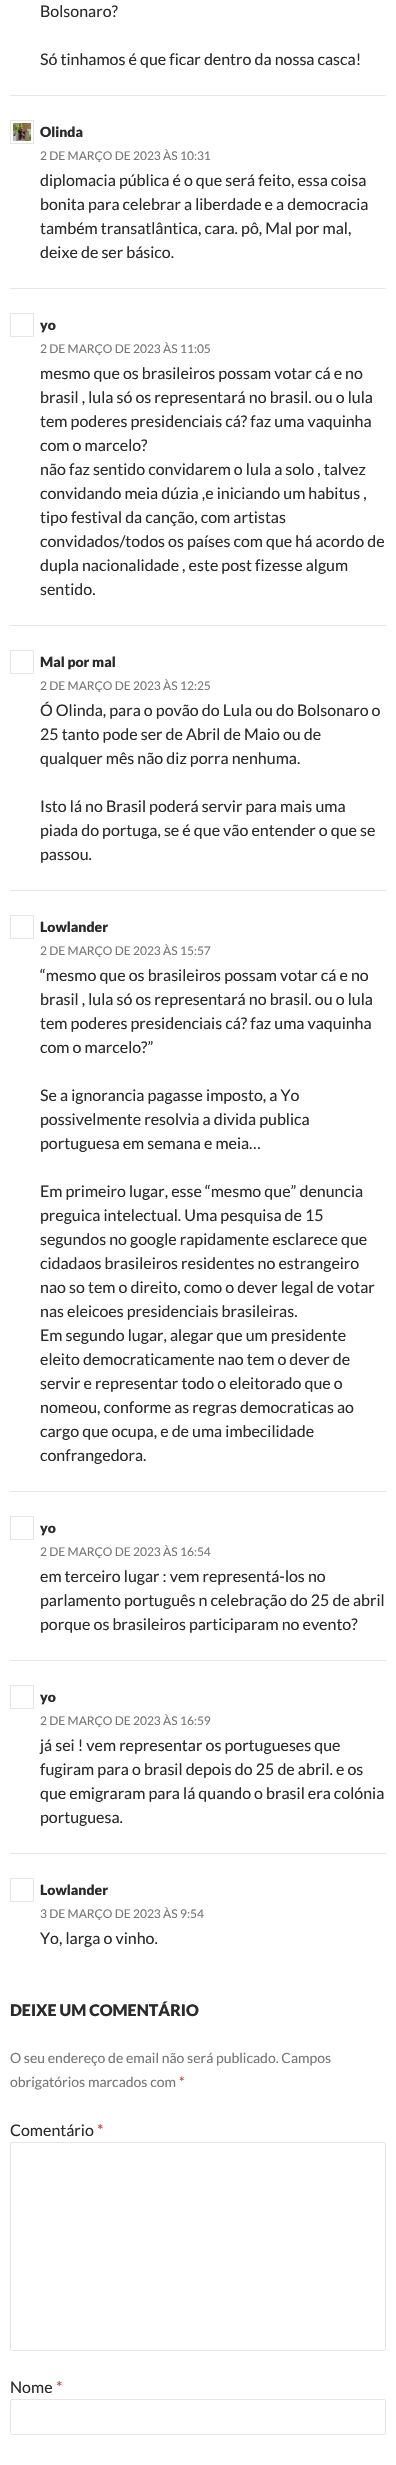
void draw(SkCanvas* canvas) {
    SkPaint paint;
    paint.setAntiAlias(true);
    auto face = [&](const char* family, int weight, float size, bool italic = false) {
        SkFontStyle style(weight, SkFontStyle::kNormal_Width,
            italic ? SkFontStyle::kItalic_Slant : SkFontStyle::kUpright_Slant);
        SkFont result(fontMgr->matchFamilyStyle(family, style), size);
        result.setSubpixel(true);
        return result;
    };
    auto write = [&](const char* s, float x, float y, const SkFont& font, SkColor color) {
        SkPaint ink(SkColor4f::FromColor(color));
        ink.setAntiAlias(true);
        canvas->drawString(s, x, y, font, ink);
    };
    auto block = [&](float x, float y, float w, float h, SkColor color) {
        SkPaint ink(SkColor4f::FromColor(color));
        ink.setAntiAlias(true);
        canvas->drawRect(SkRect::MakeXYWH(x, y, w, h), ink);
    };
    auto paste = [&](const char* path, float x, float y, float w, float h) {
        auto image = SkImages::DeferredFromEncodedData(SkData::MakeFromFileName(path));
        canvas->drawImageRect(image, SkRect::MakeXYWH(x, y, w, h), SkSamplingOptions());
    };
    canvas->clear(SK_ColorWHITE);
    auto kFont1 = face("Lato", 400, 16);
    write("Bolsonaro?", 40, 17, kFont1, SkColorSetRGB(43, 43, 43));
    write("Só tinhamos é que ficar dentro da nossa casca!", 40, 65, kFont1, SkColorSetRGB(43, 43, 43));
    block(10, 95, 376, 1, SkColorSetRGB(230, 230, 230));
    paint.setStyle(SkPaint::kStroke_Style);
    paint.setStrokeWidth(1);
    paint.setColor(SkColorSetRGB(230, 230, 230));
    canvas->drawRect(SkRect::MakeXYWH(10.5f, 120.5f, 23, 23), paint);
    paste("pic1.png", 13, 123, 18, 18);
    auto kFont2 = face("Lato", 900, 14);
    write("Olinda", 40, 137, kFont2, SkColorSetRGB(43, 43, 43));
    auto kFont3 = face("Lato", 400, 12);
    write("2 DE MARÇO DE 2023 ÀS 10:31", 40, 160, kFont3, SkColorSetRGB(118, 118, 118));
    write("diplomacia pública é o que será feito, essa coisa", 40, 186, kFont1, SkColorSetRGB(43, 43, 43));
    write("bonita para celebrar a liberdade e a democracia", 40, 210, kFont1, SkColorSetRGB(43, 43, 43));
    write("também transatlântica, cara. pô, Mal por mal,", 40, 234, kFont1, SkColorSetRGB(43, 43, 43));
    write("deixe de ser básico.", 40, 258, kFont1, SkColorSetRGB(43, 43, 43));
    block(10, 288, 376, 1, SkColorSetRGB(230, 230, 230));
    canvas->drawRect(SkRect::MakeXYWH(10.5f, 313.5f, 23, 23), paint);
    write("yo", 40, 330, kFont2, SkColorSetRGB(43, 43, 43));
    write("2 DE MARÇO DE 2023 ÀS 11:05", 40, 353, kFont3, SkColorSetRGB(118, 118, 118));
    write("mesmo que os brasileiros possam votar cá e no", 40, 379, kFont1, SkColorSetRGB(43, 43, 43));
    write("brasil , lula só os representará no brasil. ou o lula", 40, 403, kFont1, SkColorSetRGB(43, 43, 43));
    write("tem poderes presidenciais cá? faz uma vaquinha", 40, 427, kFont1, SkColorSetRGB(43, 43, 43));
    write("com o marcelo?", 40, 451, kFont1, SkColorSetRGB(43, 43, 43));
    write("não faz sentido convidarem o lula a solo , talvez", 40, 475, kFont1, SkColorSetRGB(43, 43, 43));
    write("convidando meia dúzia ,e iniciando um habitus ,", 40, 499, kFont1, SkColorSetRGB(43, 43, 43));
    write("tipo festival da canção, com artistas", 40, 523, kFont1, SkColorSetRGB(43, 43, 43));
    write("convidados/todos os países com que há acordo de", 40, 547, kFont1, SkColorSetRGB(43, 43, 43));
    write("dupla nacionalidade , este post fizesse algum", 40, 571, kFont1, SkColorSetRGB(43, 43, 43));
    write("sentido.", 40, 595, kFont1, SkColorSetRGB(43, 43, 43));
    block(10, 625, 376, 1, SkColorSetRGB(230, 230, 230));
    canvas->drawRect(SkRect::MakeXYWH(10.5f, 650.5f, 23, 23), paint);
    write("Mal por mal", 40, 667, kFont2, SkColorSetRGB(43, 43, 43));
    write("2 DE MARÇO DE 2023 ÀS 12:25", 40, 690, kFont3, SkColorSetRGB(118, 118, 118));
    write("Ó Olinda, para o povão do Lula ou do Bolsonaro o", 40, 716, kFont1, SkColorSetRGB(43, 43, 43));
    write("25 tanto pode ser de Abril de Maio ou de", 40, 740, kFont1, SkColorSetRGB(43, 43, 43));
    write("qualquer mês não diz porra nenhuma.", 40, 764, kFont1, SkColorSetRGB(43, 43, 43));
    write("Isto lá no Brasil poderá servir para mais uma", 40, 812, kFont1, SkColorSetRGB(43, 43, 43));
    write("piada do portuga, se é que vão entender o que se", 40, 836, kFont1, SkColorSetRGB(43, 43, 43));
    write("passou.", 40, 860, kFont1, SkColorSetRGB(43, 43, 43));
    block(10, 890, 376, 1, SkColorSetRGB(230, 230, 230));
    canvas->drawRect(SkRect::MakeXYWH(10.5f, 915.5f, 23, 23), paint);
    write("Lowlander", 40, 932, kFont2, SkColorSetRGB(43, 43, 43));
    write("2 DE MARÇO DE 2023 ÀS 15:57", 40, 955, kFont3, SkColorSetRGB(118, 118, 118));
    write("“mesmo que os brasileiros possam votar cá e no", 40, 981, kFont1, SkColorSetRGB(43, 43, 43));
    write("brasil , lula só os representará no brasil. ou o lula", 40, 1005, kFont1, SkColorSetRGB(43, 43, 43));
    write("tem poderes presidenciais cá? faz uma vaquinha", 40, 1029, kFont1, SkColorSetRGB(43, 43, 43));
    write("com o marcelo?”", 40, 1053, kFont1, SkColorSetRGB(43, 43, 43));
    write("Se a ignorancia pagasse imposto, a Yo", 40, 1101, kFont1, SkColorSetRGB(43, 43, 43));
    write("possivelmente resolvia a divida publica", 40, 1125, kFont1, SkColorSetRGB(43, 43, 43));
    write("portuguesa em semana e meia…", 40, 1149, kFont1, SkColorSetRGB(43, 43, 43));
    write("Em primeiro lugar, esse “mesmo que” denuncia", 40, 1197, kFont1, SkColorSetRGB(43, 43, 43));
    write("preguica intelectual. Uma pesquisa de 15", 40, 1221, kFont1, SkColorSetRGB(43, 43, 43));
    write("segundos no google rapidamente esclarece que", 40, 1245, kFont1, SkColorSetRGB(43, 43, 43));
    write("cidadaos brasileiros residentes no estrangeiro", 40, 1269, kFont1, SkColorSetRGB(43, 43, 43));
    write("nao so tem o direito, como o dever legal de votar", 40, 1293, kFont1, SkColorSetRGB(43, 43, 43));
    write("nas eleicoes presidenciais brasileiras.", 40, 1317, kFont1, SkColorSetRGB(43, 43, 43));
    write("Em segundo lugar, alegar que um presidente", 40, 1341, kFont1, SkColorSetRGB(43, 43, 43));
    write("eleito democraticamente nao tem o dever de", 40, 1365, kFont1, SkColorSetRGB(43, 43, 43));
    write("servir e representar todo o eleitorado que o", 40, 1389, kFont1, SkColorSetRGB(43, 43, 43));
    write("nomeou, conforme as regras democraticas ao", 40, 1413, kFont1, SkColorSetRGB(43, 43, 43));
    write("cargo que ocupa, e de uma imbecilidade", 40, 1437, kFont1, SkColorSetRGB(43, 43, 43));
    write("confrangedora.", 40, 1461, kFont1, SkColorSetRGB(43, 43, 43));
    block(10, 1491, 376, 1, SkColorSetRGB(230, 230, 230));
    canvas->drawRect(SkRect::MakeXYWH(10.5f, 1516.5f, 23, 23), paint);
    write("yo", 40, 1533, kFont2, SkColorSetRGB(43, 43, 43));
    write("2 DE MARÇO DE 2023 ÀS 16:54", 40, 1556, kFont3, SkColorSetRGB(118, 118, 118));
    write("em terceiro lugar : vem representá-los no", 40, 1582, kFont1, SkColorSetRGB(43, 43, 43));
    write("parlamento português n celebração do 25 de abril", 40, 1606, kFont1, SkColorSetRGB(43, 43, 43));
    write("porque os brasileiros participaram no evento?", 40, 1630, kFont1, SkColorSetRGB(43, 43, 43));
    block(10, 1660, 376, 1, SkColorSetRGB(230, 230, 230));
    canvas->drawRect(SkRect::MakeXYWH(10.5f, 1685.5f, 23, 23), paint);
    write("yo", 40, 1702, kFont2, SkColorSetRGB(43, 43, 43));
    write("2 DE MARÇO DE 2023 ÀS 16:59", 40, 1725, kFont3, SkColorSetRGB(118, 118, 118));
    write("já sei ! vem representar os portugueses que", 40, 1751, kFont1, SkColorSetRGB(43, 43, 43));
    write("fugiram para o brasil depois do 25 de abril. e os", 40, 1775, kFont1, SkColorSetRGB(43, 43, 43));
    write("que emigraram para lá quando o brasil era colónia", 40, 1799, kFont1, SkColorSetRGB(43, 43, 43));
    write("portuguesa.", 40, 1823, kFont1, SkColorSetRGB(43, 43, 43));
    block(10, 1853, 376, 1, SkColorSetRGB(230, 230, 230));
    canvas->drawRect(SkRect::MakeXYWH(10.5f, 1878.5f, 23, 23), paint);
    write("Lowlander", 40, 1895, kFont2, SkColorSetRGB(43, 43, 43));
    write("3 DE MARÇO DE 2023 ÀS 9:54", 40, 1918, kFont3, SkColorSetRGB(118, 118, 118));
    write("Yo, larga o vinho.", 40, 1944, kFont1, SkColorSetRGB(43, 43, 43));
    auto kFont4 = face("Lato", 900, 16);
    write("DEIXE UM COMENTÁRIO", 10, 2016, kFont4, SkColorSetRGB(43, 43, 43));
    auto kFont5 = face("Lato", 400, 14);
    write("O seu endereço de email não será publicado. Campos", 10, 2063, kFont5, SkColorSetRGB(118, 118, 118));
    write("obrigatórios marcados com", 10, 2087, kFont5, SkColorSetRGB(118, 118, 118));
    write("*", 179, 2087, kFont5, SkColorSetRGB(192, 57, 43));
    write("Comentário", 10, 2136, kFont1, SkColorSetRGB(43, 43, 43));
    write("*", 97, 2136, kFont1, SkColorSetRGB(192, 57, 43));
    canvas->drawRoundRect(SkRect::MakeXYWH(10.5f, 2142.5f, 375, 208), 1.5f, 1.5f, paint);
    write("Nome", 10, 2393, kFont1, SkColorSetRGB(43, 43, 43));
    write("*", 56, 2393, kFont1, SkColorSetRGB(192, 57, 43));
    canvas->drawRoundRect(SkRect::MakeXYWH(10.5f, 2399.5f, 375, 35), 1.5f, 1.5f, paint);
}
